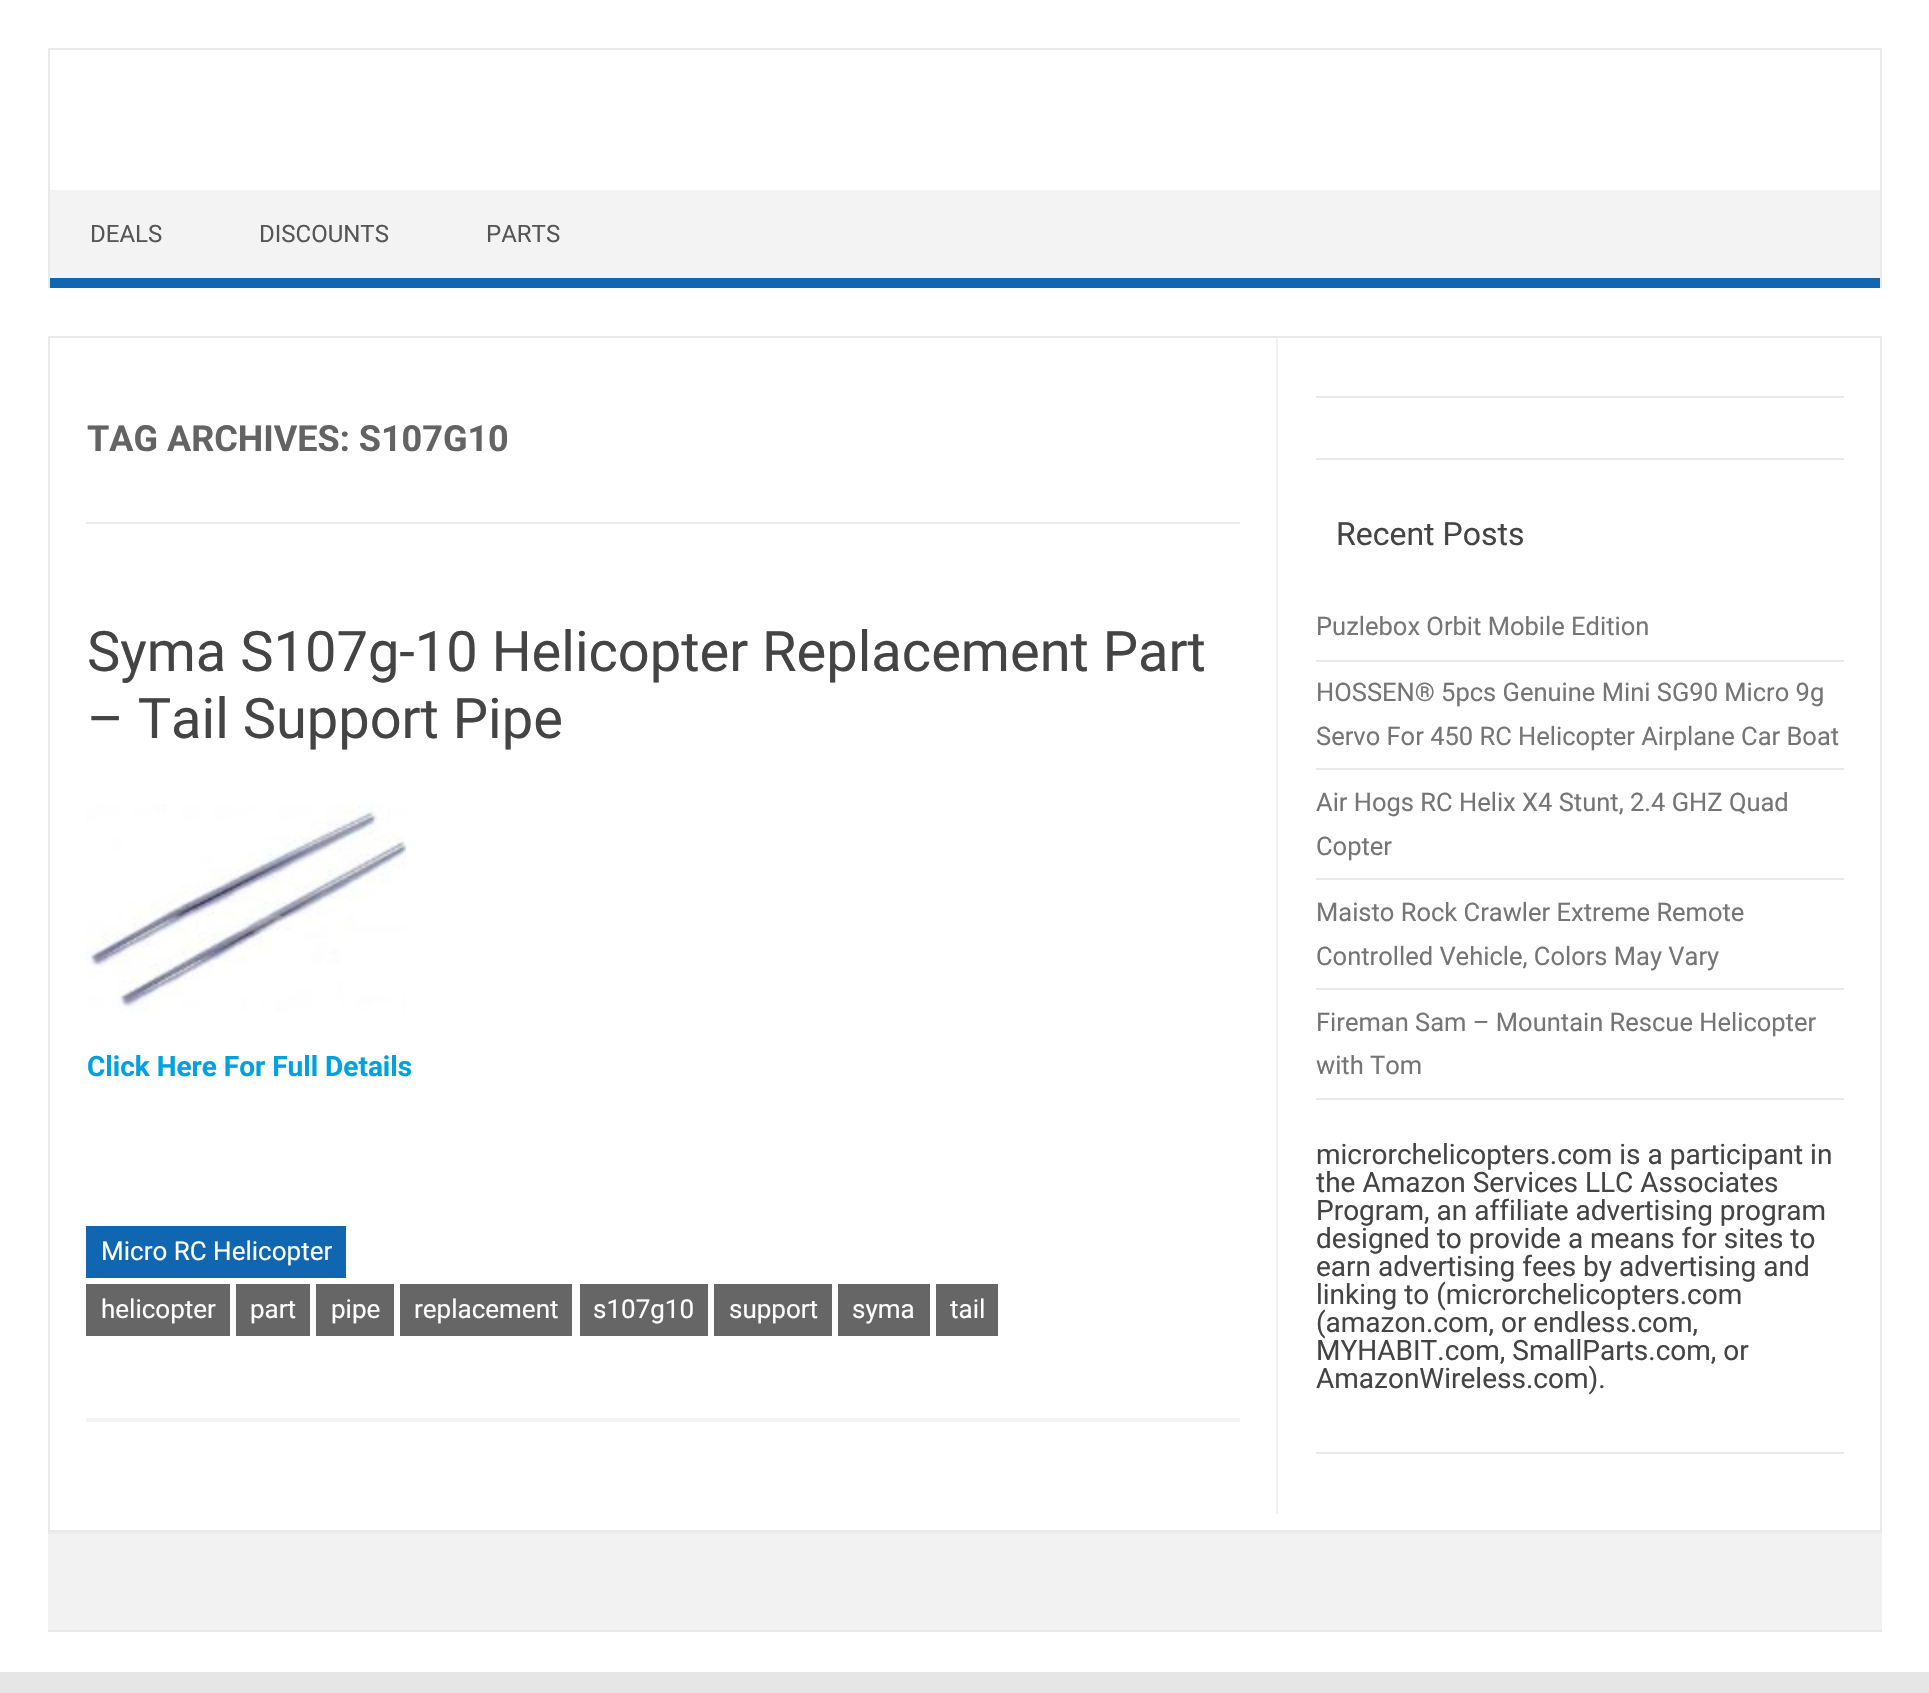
void draw(SkCanvas* canvas) {
    SkPaint paint;
    paint.setAntiAlias(true);
    auto face = [&](const char* family, int weight, float size, bool italic = false) {
        SkFontStyle style(weight, SkFontStyle::kNormal_Width,
            italic ? SkFontStyle::kItalic_Slant : SkFontStyle::kUpright_Slant);
        SkFont result(fontMgr->matchFamilyStyle(family, style), size);
        result.setSubpixel(true);
        return result;
    };
    auto write = [&](const char* s, float x, float y, const SkFont& font, SkColor color) {
        SkPaint ink(SkColor4f::FromColor(color));
        ink.setAntiAlias(true);
        canvas->drawString(s, x, y, font, ink);
    };
    auto block = [&](float x, float y, float w, float h, SkColor color) {
        SkPaint ink(SkColor4f::FromColor(color));
        ink.setAntiAlias(true);
        canvas->drawRect(SkRect::MakeXYWH(x, y, w, h), ink);
    };
    auto paste = [&](const char* path, float x, float y, float w, float h) {
        auto image = SkImages::DeferredFromEncodedData(SkData::MakeFromFileName(path));
        canvas->drawImageRect(image, SkRect::MakeXYWH(x, y, w, h), SkSamplingOptions());
    };
    canvas->clear(SkColorSetRGB(230, 230, 230));
    block(0, 0, 1929, 1672, SK_ColorWHITE);
    block(48, 48, 1834, 2, SkColorSetRGB(233, 233, 233));
    block(1880, 48, 2, 240, SkColorSetRGB(233, 233, 233));
    block(48, 48, 2, 240, SkColorSetRGB(233, 233, 233));
    block(50, 190, 1830, 88, SkColorSetRGB(243, 243, 243));
    block(50, 278, 1830, 10, SkColorSetRGB(17, 102, 177));
    auto kFont1 = face("Roboto", 400, 24);
    write("DEALS", 90, 242, kFont1, SkColorSetRGB(85, 85, 85));
    write("DISCOUNTS", 259, 242, kFont1, SkColorSetRGB(85, 85, 85));
    write("PARTS", 486, 242, kFont1, SkColorSetRGB(85, 85, 85));
    paint.setStyle(SkPaint::kStroke_Style);
    paint.setStrokeWidth(2);
    paint.setColor(SkColorSetRGB(233, 233, 233));
    canvas->drawRect(SkRect::MakeXYWH(49, 337, 1832, 1194), paint);
    block(1276, 338, 2, 1176, SkColorSetRGB(241, 241, 241));
    block(86, 522, 1154, 2, SkColorSetRGB(237, 237, 237));
    auto kFont2 = face("Roboto", 700, 36);
    write("TAG ARCHIVES: S107G10", 87, 451, kFont2, SkColorSetRGB(99, 99, 99));
    block(86, 1418, 1154, 4, SkColorSetRGB(243, 243, 243));
    auto kFont3 = face("Roboto", 400, 56);
    write("Syma S107g-10 Helicopter Replacement Part", 87, 671, kFont3, SkColorSetRGB(68, 68, 68));
    write("– Tail Support Pipe", 87, 738, kFont3, SkColorSetRGB(68, 68, 68));
    paste("pic1.png", 86, 804, 320, 209);
    auto kFont4 = face("Roboto", 700, 28);
    write("Click Here For Full Details", 87, 1076, kFont4, SkColorSetRGB(0, 161, 224));
    block(86, 1226, 260, 52, SkColorSetRGB(17, 102, 177));
    auto kFont5 = face("Roboto", 400, 26);
    write("Micro RC Helicopter", 101, 1260, kFont5, SK_ColorWHITE);
    block(86, 1284, 144, 52, SkColorSetRGB(102, 102, 102));
    write("helicopter", 101, 1318, kFont5, SK_ColorWHITE);
    block(236, 1284, 74, 52, SkColorSetRGB(102, 102, 102));
    write("part", 250, 1318, kFont5, SK_ColorWHITE);
    block(316, 1284, 78, 52, SkColorSetRGB(102, 102, 102));
    write("pipe", 331, 1318, kFont5, SK_ColorWHITE);
    block(400, 1284, 172, 52, SkColorSetRGB(102, 102, 102));
    write("replacement", 414, 1318, kFont5, SK_ColorWHITE);
    block(580, 1284, 128, 52, SkColorSetRGB(102, 102, 102));
    write("s107g10", 593, 1318, kFont5, SK_ColorWHITE);
    block(714, 1284, 118, 52, SkColorSetRGB(102, 102, 102));
    write("support", 729, 1318, kFont5, SK_ColorWHITE);
    block(838, 1284, 92, 52, SkColorSetRGB(102, 102, 102));
    write("syma", 852, 1318, kFont5, SK_ColorWHITE);
    block(936, 1284, 62, 52, SkColorSetRGB(102, 102, 102));
    write("tail", 950, 1318, kFont5, SK_ColorWHITE);
    block(1316, 396, 528, 2, SkColorSetRGB(233, 233, 233));
    block(1316, 458, 528, 2, SkColorSetRGB(233, 233, 233));
    auto kFont6 = face("Roboto", 400, 32);
    write("Recent Posts", 1336, 545, kFont6, SkColorSetRGB(68, 68, 68));
    block(1316, 660, 528, 2, SkColorSetRGB(233, 233, 233));
    auto kFont7 = face("Roboto", 400, 25.5f);
    write("Puzlebox Orbit Mobile Edition", 1316, 635, kFont7, SkColorSetRGB(117, 117, 117));
    block(1316, 768, 528, 2, SkColorSetRGB(233, 233, 233));
    write("HOSSEN® 5pcs Genuine Mini SG90 Micro 9g", 1316, 701, kFont7, SkColorSetRGB(117, 117, 117));
    write("Servo For 450 RC Helicopter Airplane Car Boat", 1316, 745, kFont7, SkColorSetRGB(117, 117, 117));
    block(1316, 878, 528, 2, SkColorSetRGB(233, 233, 233));
    write("Air Hogs RC Helix X4 Stunt, 2.4 GHZ Quad", 1316, 811, kFont7, SkColorSetRGB(117, 117, 117));
    write("Copter", 1316, 855, kFont7, SkColorSetRGB(117, 117, 117));
    block(1316, 988, 528, 2, SkColorSetRGB(233, 233, 233));
    write("Maisto Rock Crawler Extreme Remote", 1316, 921, kFont7, SkColorSetRGB(117, 117, 117));
    write("Controlled Vehicle, Colors May Vary", 1316, 965, kFont7, SkColorSetRGB(117, 117, 117));
    block(1316, 1098, 528, 2, SkColorSetRGB(233, 233, 233));
    write("Fireman Sam – Mountain Rescue Helicopter", 1316, 1031, kFont7, SkColorSetRGB(117, 117, 117));
    write("with Tom", 1316, 1074, kFont7, SkColorSetRGB(117, 117, 117));
    auto kFont8 = face("Roboto", 400, 28);
    write("microrchelicopters.com is a participant in", 1316, 1164, kFont8, SkColorSetRGB(68, 68, 68));
    write("the Amazon Services LLC Associates", 1316, 1192, kFont8, SkColorSetRGB(68, 68, 68));
    write("Program, an affiliate advertising program", 1316, 1220, kFont8, SkColorSetRGB(68, 68, 68));
    write("designed to provide a means for sites to", 1316, 1248, kFont8, SkColorSetRGB(68, 68, 68));
    write("earn advertising fees by advertising and", 1316, 1276, kFont8, SkColorSetRGB(68, 68, 68));
    write("linking to (microrchelicopters.com", 1316, 1304, kFont8, SkColorSetRGB(68, 68, 68));
    write("(amazon.com, or endless.com,", 1316, 1332, kFont8, SkColorSetRGB(68, 68, 68));
    write("MYHABIT.com, SmallParts.com, or", 1316, 1360, kFont8, SkColorSetRGB(68, 68, 68));
    write("AmazonWireless.com).", 1316, 1388, kFont8, SkColorSetRGB(68, 68, 68));
    block(1316, 1452, 528, 2, SkColorSetRGB(233, 233, 233));
    block(48, 1534, 1834, 96, SkColorSetRGB(242, 242, 242));
    block(48, 1532, 1834, 2, SkColorSetRGB(237, 237, 237));
    block(48, 1630, 1834, 2, SkColorSetRGB(233, 233, 233));
}
